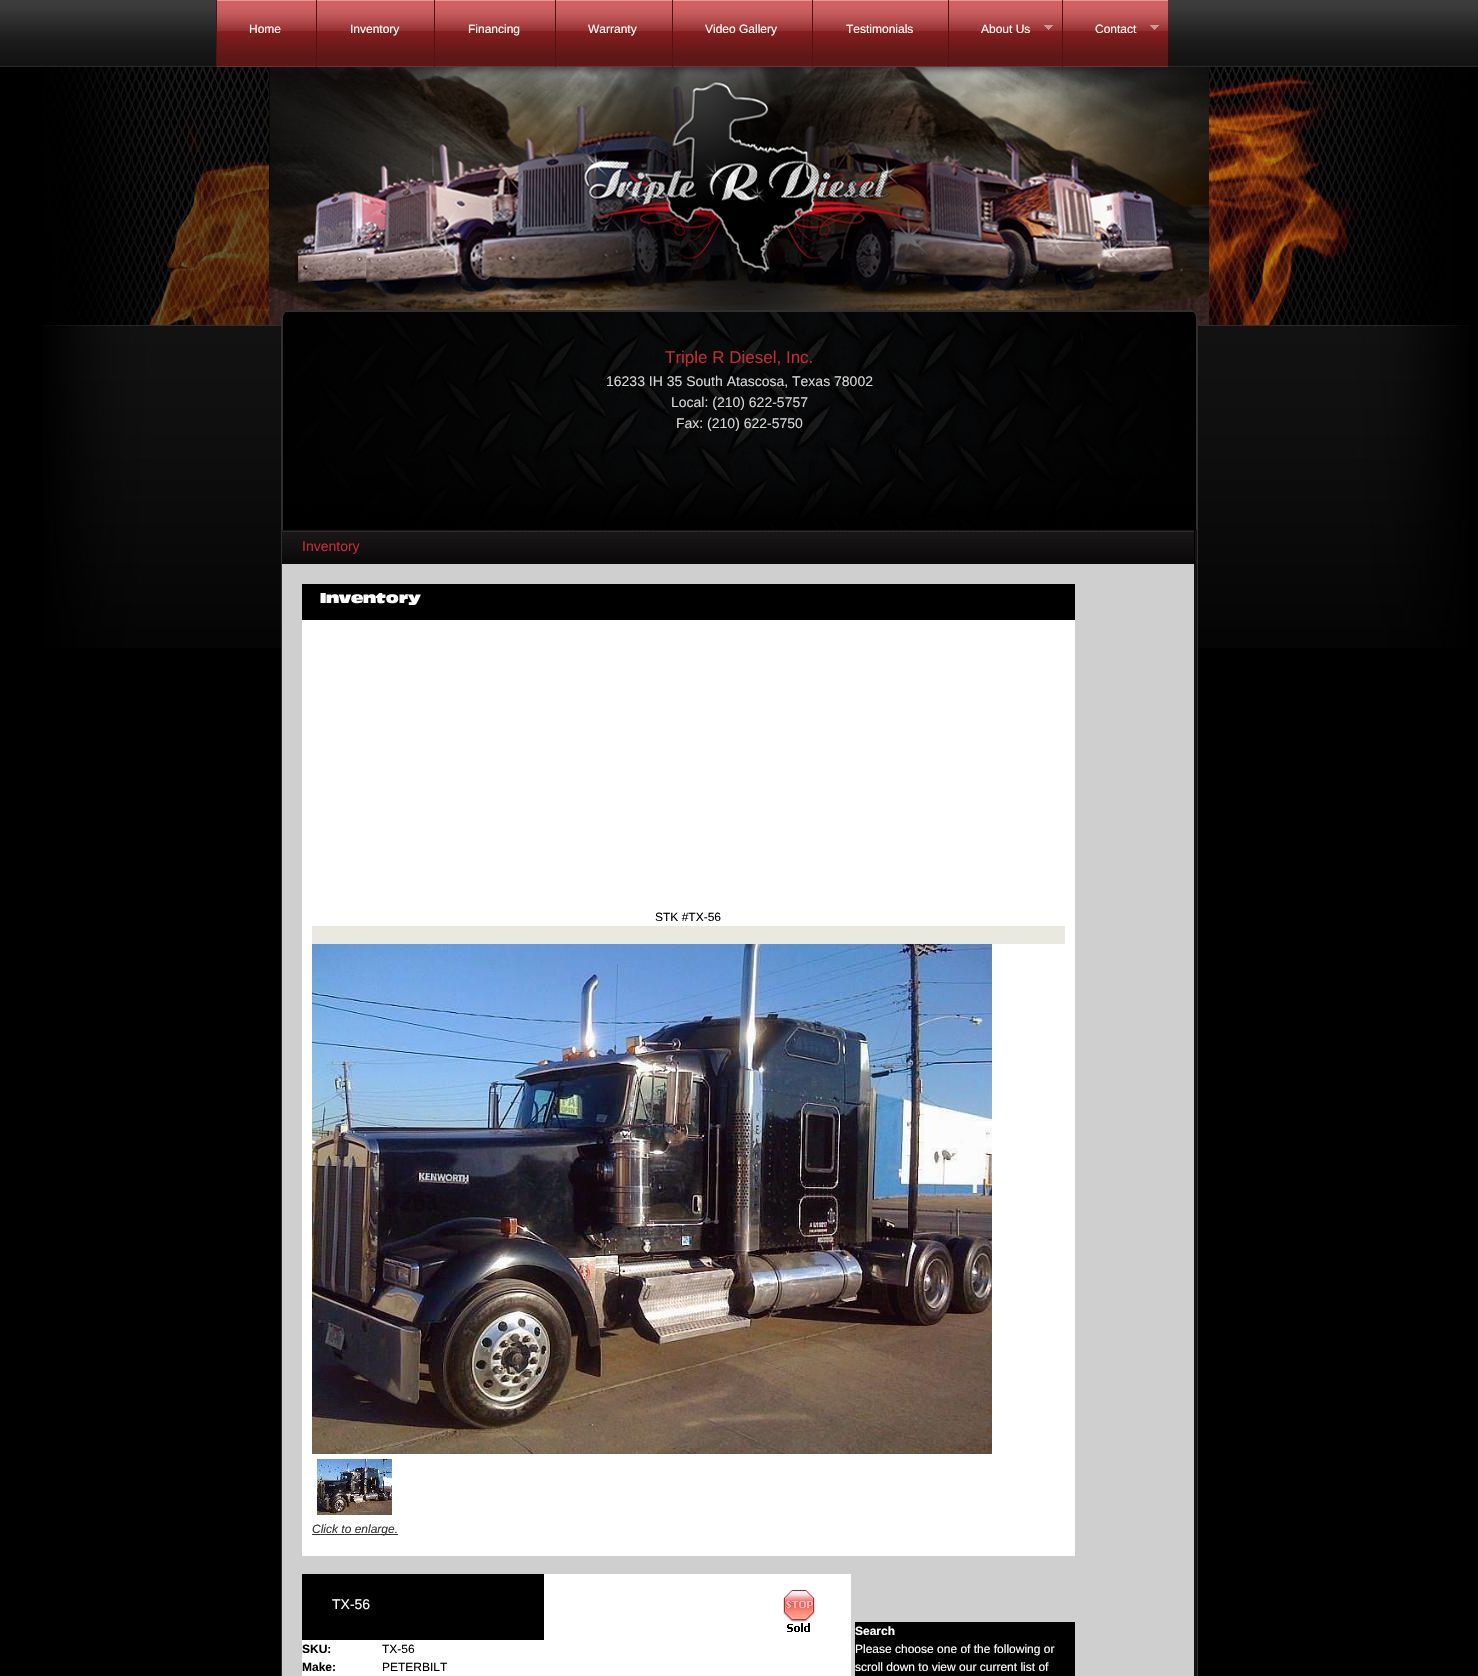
void draw(SkCanvas* canvas) {
    SkPaint paint;
    paint.setAntiAlias(true);
    auto face = [&](const char* family, int weight, float size, bool italic = false) {
        SkFontStyle style(weight, SkFontStyle::kNormal_Width,
            italic ? SkFontStyle::kItalic_Slant : SkFontStyle::kUpright_Slant);
        SkFont result(fontMgr->matchFamilyStyle(family, style), size);
        result.setSubpixel(true);
        return result;
    };
    auto write = [&](const char* s, float x, float y, const SkFont& font, SkColor color) {
        SkPaint ink(SkColor4f::FromColor(color));
        ink.setAntiAlias(true);
        canvas->drawString(s, x, y, font, ink);
    };
    auto block = [&](float x, float y, float w, float h, SkColor color) {
        SkPaint ink(SkColor4f::FromColor(color));
        ink.setAntiAlias(true);
        canvas->drawRect(SkRect::MakeXYWH(x, y, w, h), ink);
    };
    auto paste = [&](const char* path, float x, float y, float w, float h) {
        auto image = SkImages::DeferredFromEncodedData(SkData::MakeFromFileName(path));
        canvas->drawImageRect(image, SkRect::MakeXYWH(x, y, w, h), SkSamplingOptions());
    };
    canvas->clear(SK_ColorBLACK);
    paste("pic1.png", 43, 67, 1426, 581);
    paste("pic2.png", 0, 0, 1478, 67);
    paste("pic3.png", 217, 0, 99, 67);
    block(216, 0, 1, 67, SkColorSetRGB(83, 19, 20));
    auto kFont1 = face("Liberation Sans", 400, 12);
    write("Home", 249, 33, kFont1, SK_ColorWHITE);
    paste("pic4.png", 317, 0, 117, 67);
    block(316, 0, 1, 67, SkColorSetRGB(83, 19, 20));
    write("Inventory", 350, 33, kFont1, SK_ColorWHITE);
    paste("pic5.png", 435, 0, 120, 67);
    block(434, 0, 1, 67, SkColorSetRGB(83, 19, 20));
    write("Financing", 468, 33, kFont1, SK_ColorWHITE);
    paste("pic6.png", 556, 0, 116, 67);
    block(555, 0, 1, 67, SkColorSetRGB(83, 19, 20));
    write("Warranty", 588, 33, kFont1, SK_ColorWHITE);
    paste("pic7.png", 673, 0, 139, 67);
    block(672, 0, 1, 67, SkColorSetRGB(83, 19, 20));
    write("Video Gallery", 705, 33, kFont1, SK_ColorWHITE);
    paste("pic8.png", 813, 0, 135, 67);
    block(812, 0, 1, 67, SkColorSetRGB(83, 19, 20));
    write("Testimonials", 846, 33, kFont1, SK_ColorWHITE);
    paste("pic9.png", 949, 0, 113, 67);
    block(948, 0, 1, 67, SkColorSetRGB(83, 19, 20));
    write("About Us", 981, 33, kFont1, SK_ColorWHITE);
    paste("pic10.png", 1044, 25, 9, 5);
    paste("pic11.png", 1063, 0, 105, 67);
    block(1062, 0, 1, 67, SkColorSetRGB(83, 19, 20));
    write("Contact", 1095, 33, kFont1, SK_ColorWHITE);
    paste("pic10.png", 1150, 25, 9, 5);
    paste("pic12.png", 269, 67, 940, 258);
    paste("pic13.png", 281, 310, 917, 220);
    auto kFont2 = face("Liberation Sans", 400, 17);
    write("Triple R Diesel, Inc.", 665, 363, kFont2, SkColorSetRGB(192, 45, 47));
    auto kFont3 = face("Liberation Sans", 400, 14);
    write("16233 IH 35 South Atascosa, Texas 78002", 606, 386, kFont3, SkColorSetRGB(214, 214, 214));
    write("Local: (210) 622-5757", 671, 407, kFont3, SkColorSetRGB(214, 214, 214));
    write("Fax: (210) 622-5750", 676, 428, kFont3, SkColorSetRGB(214, 214, 214));
    block(1194, 530, 3, 1146, SkColorSetRGB(19, 19, 19));
    block(1197, 530, 1, 1146, SkColorSetRGB(50, 47, 47));
    block(281, 530, 1, 1146, SkColorSetRGB(50, 47, 47));
    paste("pic14.png", 282, 530, 912, 34);
    block(1194, 530, 1, 34, SK_ColorBLACK);
    write("Inventory", 302, 551, kFont3, SkColorSetRGB(192, 45, 47));
    block(282, 564, 912, 1112, SkColorSetRGB(207, 207, 207));
    block(302, 584, 773, 36, SK_ColorBLACK);
    paste("pic15.png", 320, 593, 101, 12);
    block(302, 620, 773, 936, SK_ColorWHITE);
    write("STK #TX-56", 655, 921, kFont1, SK_ColorBLACK);
    block(312, 926, 753, 18, SkColorSetRGB(233, 233, 223));
    paste("pic16.png", 312, 944, 680, 510);
    paste("pic17.png", 317, 1459, 75, 56);
    block(312, 1534, 86, 1, SkColorSetRGB(54, 54, 54));
    auto kFont4 = face("Liberation Sans", 400, 12, true);
    write("Click to enlarge.", 312, 1533, kFont4, SkColorSetRGB(54, 54, 54));
    block(302, 1574, 549, 102, SK_ColorWHITE);
    block(302, 1574, 242, 66, SK_ColorBLACK);
    write("TX-56", 332, 1609, kFont3, SK_ColorWHITE);
    paste("pic18.png", 783, 1590, 32, 42);
    auto kFont5 = face("Liberation Sans", 700, 12);
    write("SKU:", 302, 1653, kFont5, SK_ColorBLACK);
    write("TX-56", 382, 1653, kFont1, SK_ColorBLACK);
    write("Make:", 302, 1671, kFont5, SK_ColorBLACK);
    write("PETERBILT", 382, 1671, kFont1, SK_ColorBLACK);
    block(855, 1622, 220, 54, SK_ColorBLACK);
    write("Search", 855, 1635, kFont5, SK_ColorWHITE);
    write("Please choose one of the following or", 855, 1653, kFont1, SK_ColorWHITE);
    write("scroll down to view our current list of", 855, 1671, kFont1, SK_ColorWHITE);
}
